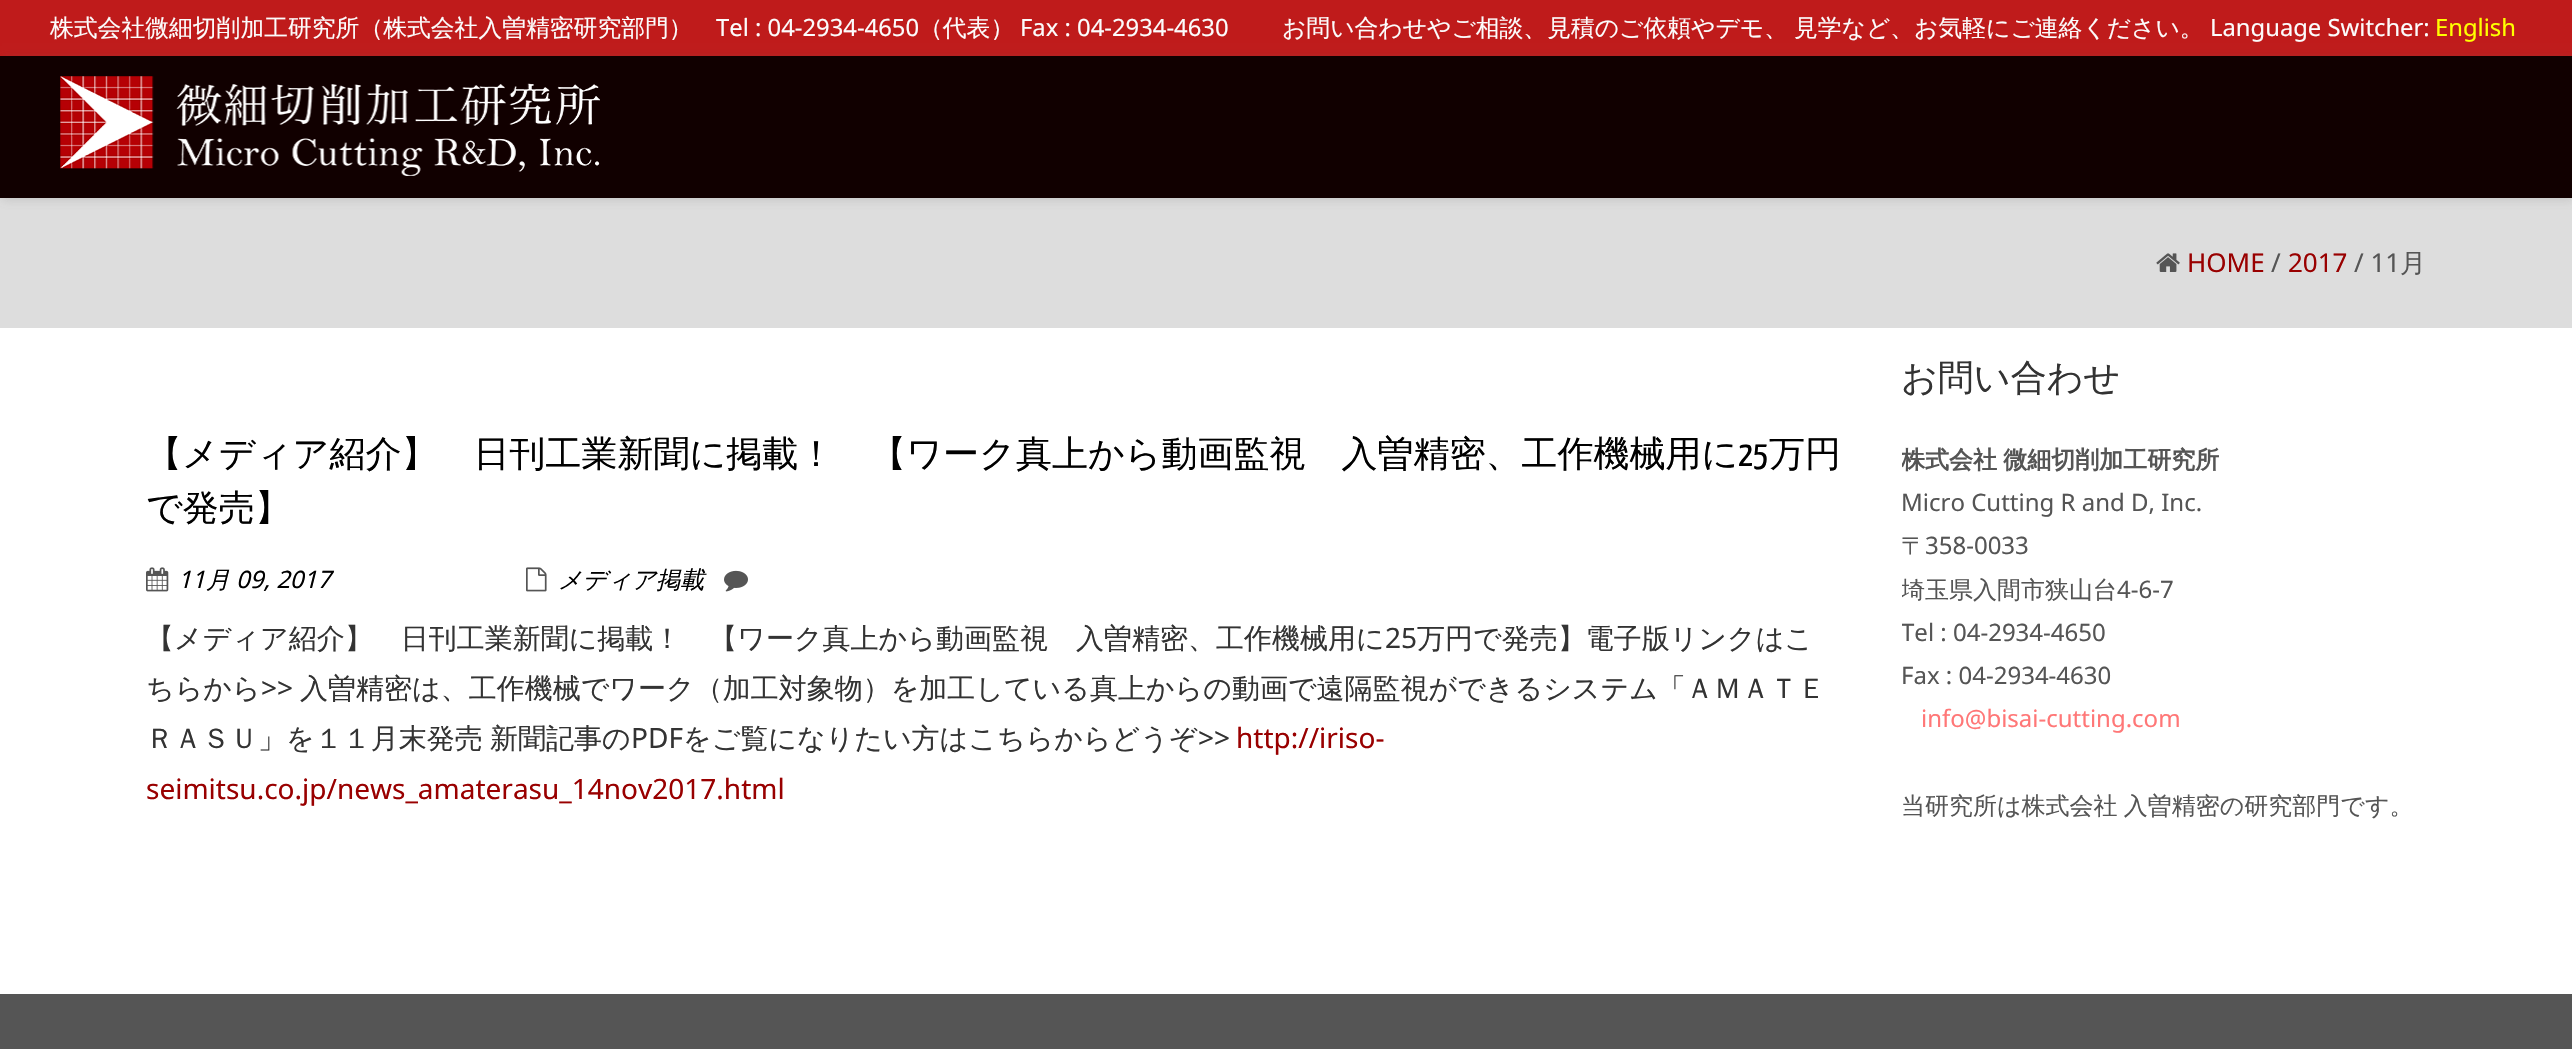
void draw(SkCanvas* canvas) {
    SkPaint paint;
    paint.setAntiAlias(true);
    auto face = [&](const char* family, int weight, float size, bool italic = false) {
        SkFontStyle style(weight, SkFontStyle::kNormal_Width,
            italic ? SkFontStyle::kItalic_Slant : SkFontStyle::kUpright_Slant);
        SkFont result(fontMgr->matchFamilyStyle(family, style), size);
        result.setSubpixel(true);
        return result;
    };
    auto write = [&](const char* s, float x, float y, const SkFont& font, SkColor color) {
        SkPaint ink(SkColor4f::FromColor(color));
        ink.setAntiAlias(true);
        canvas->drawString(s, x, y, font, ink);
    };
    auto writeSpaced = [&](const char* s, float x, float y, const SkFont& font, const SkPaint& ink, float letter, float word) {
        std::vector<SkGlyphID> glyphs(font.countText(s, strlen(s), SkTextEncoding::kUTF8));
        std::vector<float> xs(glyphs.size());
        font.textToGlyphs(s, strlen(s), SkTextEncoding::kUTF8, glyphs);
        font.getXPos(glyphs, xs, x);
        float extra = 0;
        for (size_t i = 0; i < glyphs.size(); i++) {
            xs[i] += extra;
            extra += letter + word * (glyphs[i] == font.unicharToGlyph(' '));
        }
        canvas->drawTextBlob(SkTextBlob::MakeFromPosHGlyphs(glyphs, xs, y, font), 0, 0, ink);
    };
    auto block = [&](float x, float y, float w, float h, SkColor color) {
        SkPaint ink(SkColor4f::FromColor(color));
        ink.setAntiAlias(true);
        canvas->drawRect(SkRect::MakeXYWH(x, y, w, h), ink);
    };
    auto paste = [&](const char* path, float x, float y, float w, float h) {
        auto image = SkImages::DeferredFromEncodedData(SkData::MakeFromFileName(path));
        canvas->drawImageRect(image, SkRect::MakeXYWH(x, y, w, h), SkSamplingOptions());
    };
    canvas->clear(SK_ColorWHITE);
    block(0, 0, 2572, 56, SkColorSetRGB(191, 27, 27));
    auto kFont1 = face("WenQuanYi Zen Hei", 500, 23.8f);
    write("株式会社微細切削加工研究所（株式会社入曽精密研究部門）", 50, 36, kFont1, SkColorSetRGB(252, 252, 252));
    auto kFont2 = face("Noto Sans", 400, 23.8f);
    write("Tel : 04-2934-4650", 716, 36, kFont2, SkColorSetRGB(252, 252, 252));
    write("（代表）", 919, 36, kFont1, SkColorSetRGB(252, 252, 252));
    write("Fax : 04-2934-4630", 1020, 36, kFont2, SkColorSetRGB(252, 252, 252));
    write("お問い合わせやご相談、見積のご依頼やデモ、", 1282, 36, kFont1, SkColorSetRGB(252, 252, 252));
    write("見学など、お気軽にご連絡ください。", 1794, 36, kFont1, SkColorSetRGB(252, 252, 252));
    write("Language Switcher:", 2210, 36, kFont2, SkColorSetRGB(252, 252, 252));
    write("English", 2435, 36, kFont2, SkColorSetRGB(255, 255, 0));
    block(0, 198, 2572, 130, SkColorSetRGB(221, 221, 221));
    paint.setColor(SkColorSetARGB(51, 100, 100, 100));
    paint.setMaskFilter(SkMaskFilter::MakeBlur(kNormal_SkBlurStyle, 5));
    canvas->drawRect(SkRect::MakeXYWH(2, 58, 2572, 142), paint);
    paint.setMaskFilter(nullptr);
    block(0, 56, 2572, 142, SkColorSetRGB(17, 0, 0));
    paste("pic1.png", 60, 76, 540, 100);
    paste("pic2.png", 2156, 253, 24, 19);
    auto kFont3 = face("Noto Sans", 400, 26);
    write("HOME", 2187, 272, kFont3, SkColorSetRGB(153, 0, 0));
    write("/", 2271, 272, kFont3, SkColorSetRGB(85, 85, 85));
    write("2017", 2288, 272, kFont3, SkColorSetRGB(153, 0, 0));
    write("/ 11", 2354, 272, kFont3, SkColorSetRGB(85, 85, 85));
    auto kFont4 = face("WenQuanYi Zen Hei", 500, 26);
    write("月", 2400, 272, kFont4, SkColorSetRGB(85, 85, 85));
    auto kFont5 = face("WenQuanYi Zen Hei", 500, 36);
    write("【メディア紹介】　日刊工業新聞に掲載！　【ワーク真上から動画監視　入曽精密、工作機械用に", 146, 466, kFont5, SK_ColorBLACK);
    auto kFont6 = face("Yanone Kaffeesatz", 200, 36);
    write("25", 1738, 466, kFont6, SK_ColorBLACK);
    write("万円", 1769, 466, kFont5, SK_ColorBLACK);
    write("で発売】", 146, 520, kFont5, SK_ColorBLACK);
    paste("pic3.png", 146, 567, 23, 25);
    auto kFont7 = face("Noto Sans", 400, 24, true);
    write("11", 178, 588, kFont7, SK_ColorBLACK);
    auto kFont8 = face("WenQuanYi Zen Hei", 500, 24, true);
    write("月", 206, 588, kFont8, SK_ColorBLACK);
    write("09, 2017", 236, 588, kFont7, SK_ColorBLACK);
    paste("pic4.png", 526, 567, 21, 25);
    write("メディア掲載", 558, 588, kFont8, SK_ColorBLACK);
    paste("pic5.png", 724, 570, 24, 22);
    auto kFont9 = face("WenQuanYi Zen Hei", 500, 28);
    write("【メディア紹介】　日刊工業新聞に掲載！　【ワーク真上から動画監視　入曽精密、工作機械用に", 146, 648, kFont9, SkColorSetRGB(51, 51, 51));
    auto kFont10 = face("Noto Sans", 400, 28);
    write("25", 1385, 648, kFont10, SkColorSetRGB(51, 51, 51));
    write("万円で発売】電子版リンクはこ", 1417, 648, kFont9, SkColorSetRGB(51, 51, 51));
    write("ちらから", 146, 698, kFont9, SkColorSetRGB(51, 51, 51));
    write(">>", 261, 698, kFont10, SkColorSetRGB(51, 51, 51));
    write("入曽精密は、工作機械でワーク（加工対象物）を加工している真上からの動画で遠隔監視ができるシステム「ＡＭＡＴＥ", 300, 698, kFont9, SkColorSetRGB(51, 51, 51));
    paint.setColor(SkColorSetRGB(51, 51, 51));
    writeSpaced("ＲＡＳＵ」を１１月末発売 新聞記事の", 146, 748, kFont9, paint, 0, -1);
    write("PDF", 631, 748, kFont10, SkColorSetRGB(51, 51, 51));
    write("をご覧になりたい方はこちらからどうぞ", 683, 748, kFont9, SkColorSetRGB(51, 51, 51));
    write(">>", 1198, 748, kFont10, SkColorSetRGB(51, 51, 51));
    write("http://iriso-", 1236, 748, kFont10, SkColorSetRGB(153, 0, 0));
    write("seimitsu.co.jp/news_amaterasu_14nov2017.html", 146, 799, kFont10, SkColorSetRGB(153, 0, 0));
    write("お問い合わせ", 1901, 390, kFont5, SkColorSetRGB(51, 51, 51));
    canvas->save();
    canvas->clipRect(SkRect::MakeXYWH(1902, 358, 524, 468));
    auto kFont11 = face("WenQuanYi Zen Hei", 700, 24);
    paint.setColor(SkColorSetRGB(85, 85, 85));
    writeSpaced("株式会社 微細切削加工研究所", 1901, 468, kFont11, paint, 0, -1);
    canvas->restore();
    auto kFont12 = face("Noto Sans", 400, 24);
    write("Micro Cutting R and D, Inc.", 1901, 511, kFont12, SkColorSetRGB(85, 85, 85));
    auto kFont13 = face("WenQuanYi Zen Hei", 500, 24);
    write("〒", 1901, 554, kFont13, SkColorSetRGB(85, 85, 85));
    write("358-0033", 1925, 554, kFont12, SkColorSetRGB(85, 85, 85));
    canvas->save();
    canvas->clipRect(SkRect::MakeXYWH(1902, 358, 524, 468));
    write("埼玉県入間市狭山台", 1901, 598, kFont13, SkColorSetRGB(85, 85, 85));
    canvas->restore();
    write("4-6-7", 2117, 598, kFont12, SkColorSetRGB(85, 85, 85));
    canvas->save();
    canvas->clipRect(SkRect::MakeXYWH(1902, 358, 524, 468));
    write("Tel : 04-2934-4650", 1901, 641, kFont12, SkColorSetRGB(85, 85, 85));
    canvas->restore();
    write("Fax : 04-2934-4630", 1901, 684, kFont12, SkColorSetRGB(85, 85, 85));
    write("info@bisai-cutting.com", 1921, 727, kFont12, SkColorSetRGB(255, 119, 119));
    writeSpaced("当研究所は株式会社 入曽精密の研究部門です。", 1901, 814, kFont13, paint, 0, -1);
    block(0, 994, 2572, 55, SkColorSetRGB(85, 85, 85));
}
